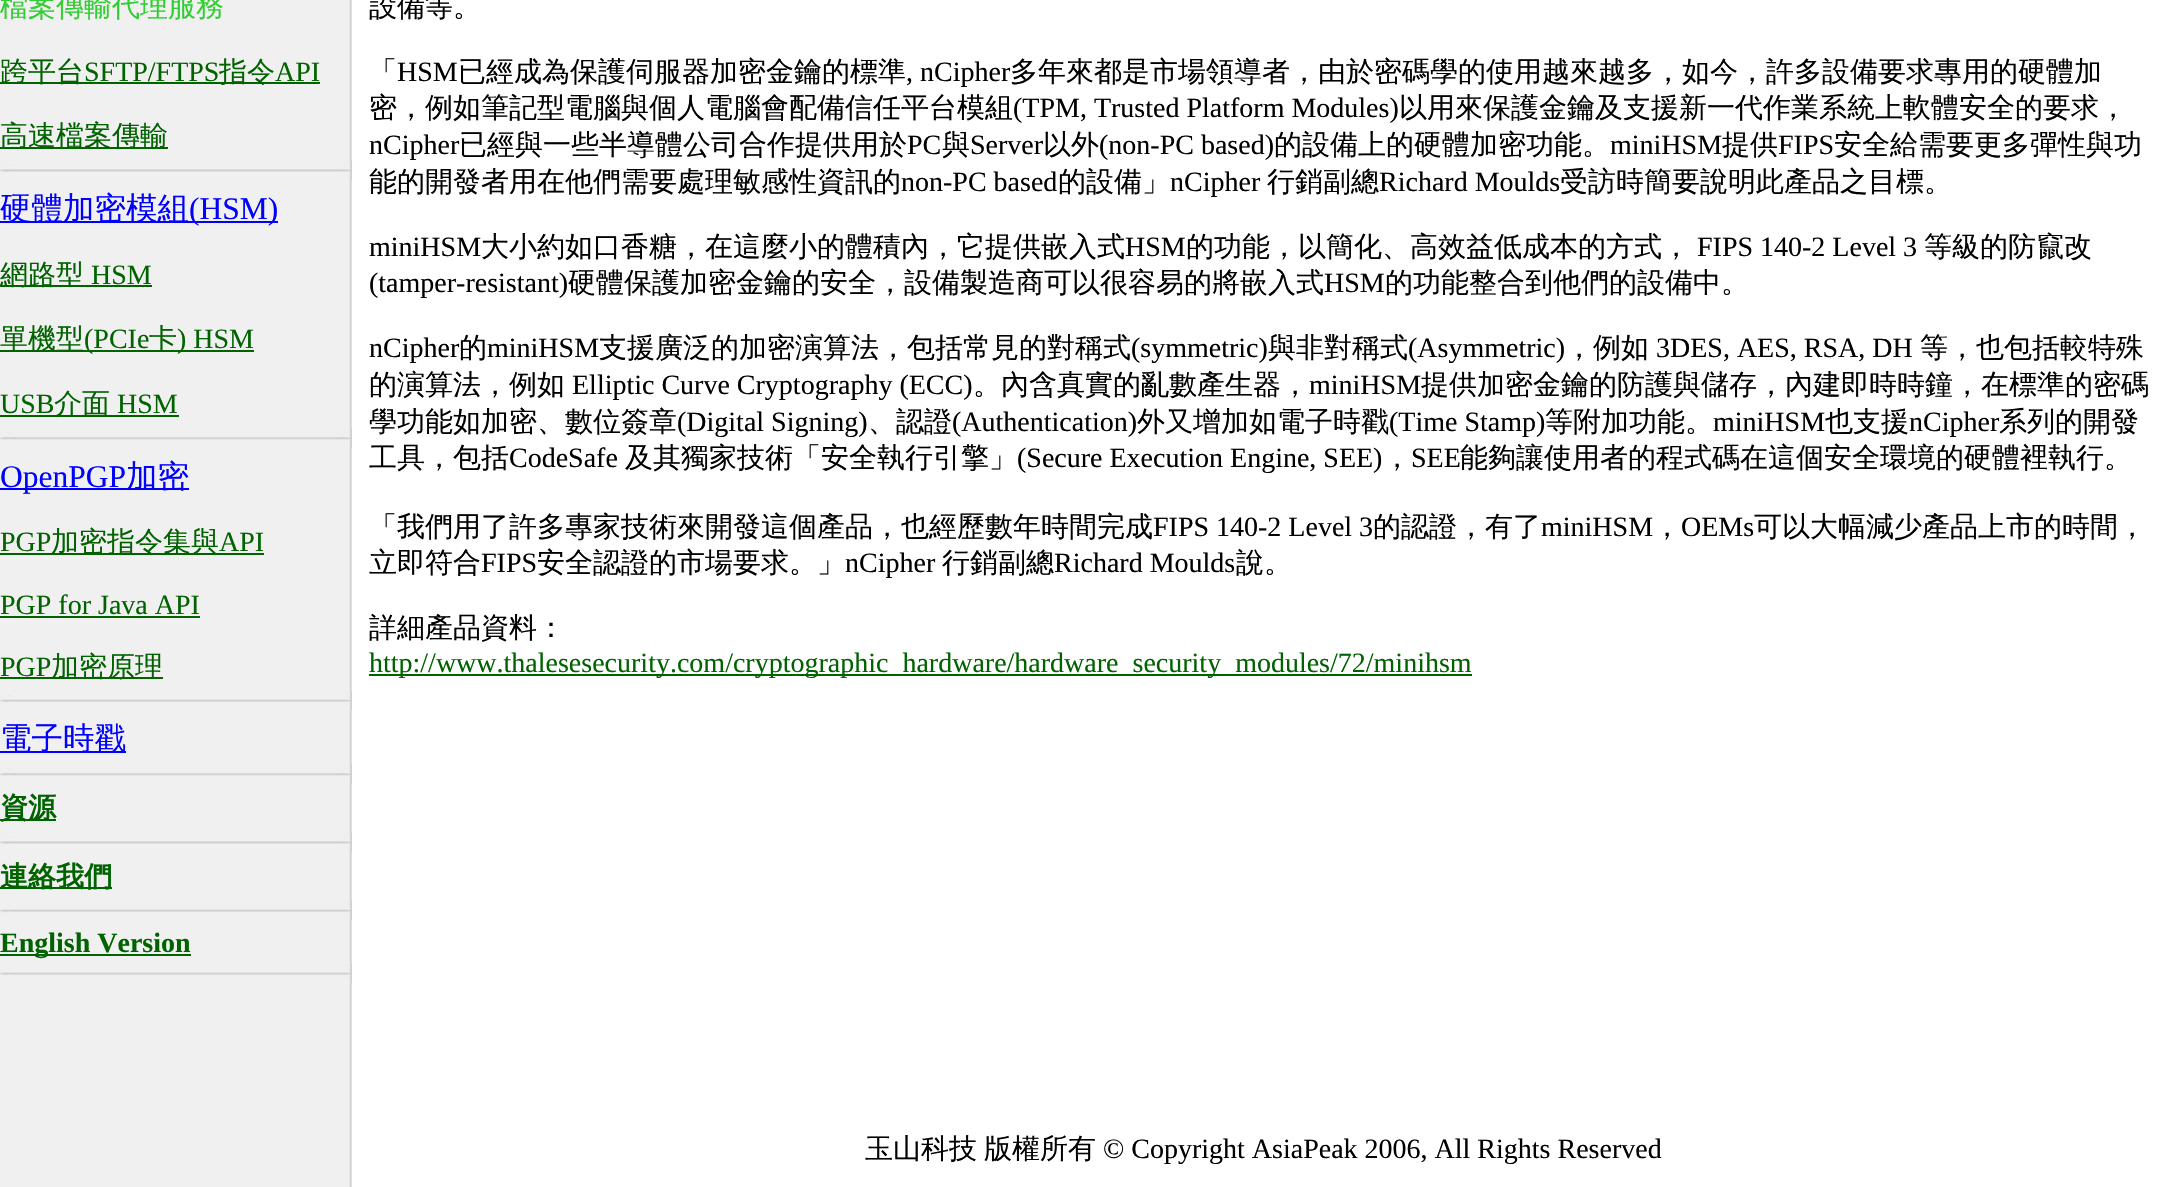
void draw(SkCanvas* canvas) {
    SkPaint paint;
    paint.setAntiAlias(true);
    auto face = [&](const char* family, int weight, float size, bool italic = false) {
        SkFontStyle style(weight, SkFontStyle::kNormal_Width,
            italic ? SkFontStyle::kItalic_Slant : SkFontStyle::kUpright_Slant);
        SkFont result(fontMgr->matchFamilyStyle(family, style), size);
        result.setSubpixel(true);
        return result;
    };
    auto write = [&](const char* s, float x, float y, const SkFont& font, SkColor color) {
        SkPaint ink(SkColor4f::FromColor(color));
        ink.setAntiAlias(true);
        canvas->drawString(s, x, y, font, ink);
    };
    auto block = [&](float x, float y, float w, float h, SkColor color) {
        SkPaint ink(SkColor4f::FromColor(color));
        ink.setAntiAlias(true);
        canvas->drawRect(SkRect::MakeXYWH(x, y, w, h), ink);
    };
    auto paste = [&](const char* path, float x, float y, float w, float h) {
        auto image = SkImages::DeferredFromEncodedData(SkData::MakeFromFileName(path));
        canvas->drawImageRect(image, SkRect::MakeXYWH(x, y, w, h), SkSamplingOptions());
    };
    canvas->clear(SK_ColorWHITE);
    paste("pic1.png", 0, 0, 352, 1187);
    auto kFont1 = face("WenQuanYi Zen Hei", 500, 28);
    write("檔案傳輸代理服務", 0, 16, kFont1, SkColorSetRGB(49, 206, 49));
    block(0, 82, 320, 2, SkColorSetRGB(0, 99, 0));
    write("跨平台", 0, 81, kFont1, SkColorSetRGB(0, 99, 0));
    auto kFont2 = face("Liberation Serif", 400, 28);
    write("SFTP/FTPS", 84, 81, kFont2, SkColorSetRGB(0, 99, 0));
    write("指令", 219, 81, kFont1, SkColorSetRGB(0, 99, 0));
    write("API", 275, 81, kFont2, SkColorSetRGB(0, 99, 0));
    block(0, 147, 168, 2, SkColorSetRGB(0, 99, 0));
    write("高速檔案傳輸", 0, 145, kFont1, SkColorSetRGB(0, 99, 0));
    paste("pic2.png", 0, 161, 352, 19);
    block(0, 221, 278, 2, SkColorSetRGB(0, 0, 255));
    auto kFont3 = face("WenQuanYi Zen Hei", 500, 31.5f);
    write("硬體加密模組", 0, 219, kFont3, SkColorSetRGB(0, 0, 255));
    auto kFont4 = face("Liberation Serif", 400, 31.5f);
    write("(HSM)", 189, 219, kFont4, SkColorSetRGB(0, 0, 255));
    block(0, 285, 152, 2, SkColorSetRGB(0, 99, 0));
    write("網路型", 0, 284, kFont1, SkColorSetRGB(0, 99, 0));
    write("HSM", 91, 284, kFont2, SkColorSetRGB(0, 99, 0));
    block(0, 350, 254, 2, SkColorSetRGB(0, 99, 0));
    write("單機型", 0, 348, kFont1, SkColorSetRGB(0, 99, 0));
    write("(PCIe", 84, 348, kFont2, SkColorSetRGB(0, 99, 0));
    write("卡", 149, 348, kFont1, SkColorSetRGB(0, 99, 0));
    write(") HSM", 177, 348, kFont2, SkColorSetRGB(0, 99, 0));
    write("USB", 0, 413, kFont2, SkColorSetRGB(0, 99, 0));
    block(0, 415, 179, 2, SkColorSetRGB(0, 99, 0));
    write("介面", 54, 413, kFont1, SkColorSetRGB(0, 99, 0));
    write("HSM", 117, 413, kFont2, SkColorSetRGB(0, 99, 0));
    paste("pic3.png", 0, 428, 352, 20);
    block(0, 488, 189, 2, SkColorSetRGB(0, 0, 255));
    write("OpenPGP", 0, 487, kFont4, SkColorSetRGB(0, 0, 255));
    write("加密", 126, 487, kFont3, SkColorSetRGB(0, 0, 255));
    write("PGP", 0, 551, kFont2, SkColorSetRGB(0, 99, 0));
    block(0, 553, 264, 2, SkColorSetRGB(0, 99, 0));
    write("加密指令集與", 51, 551, kFont1, SkColorSetRGB(0, 99, 0));
    write("API", 219, 551, kFont2, SkColorSetRGB(0, 99, 0));
    write("PGP for Java API", 0, 614, kFont2, SkColorSetRGB(0, 99, 0));
    block(0, 616, 200, 2, SkColorSetRGB(0, 99, 0));
    write("PGP", 0, 676, kFont2, SkColorSetRGB(0, 99, 0));
    block(0, 677, 163, 2, SkColorSetRGB(0, 99, 0));
    write("加密原理", 51, 676, kFont1, SkColorSetRGB(0, 99, 0));
    paste("pic4.png", 0, 691, 352, 19);
    block(0, 751, 126, 2, SkColorSetRGB(0, 0, 255));
    write("電子時戳", 0, 749, kFont3, SkColorSetRGB(0, 0, 255));
    paste("pic3.png", 0, 764, 352, 20);
    block(0, 819, 56, 2, SkColorSetRGB(0, 99, 0));
    auto kFont5 = face("WenQuanYi Zen Hei", 700, 28);
    write("資源", 0, 817, kFont5, SkColorSetRGB(0, 99, 0));
    paste("pic2.png", 0, 833, 352, 19);
    block(0, 887, 112, 2, SkColorSetRGB(0, 99, 0));
    write("連絡我們", 0, 886, kFont5, SkColorSetRGB(0, 99, 0));
    paste("pic4.png", 0, 901, 352, 19);
    block(0, 954, 191, 2, SkColorSetRGB(0, 99, 0));
    auto kFont6 = face("Liberation Serif", 700, 28);
    write("English Version", 0, 952, kFont6, SkColorSetRGB(0, 99, 0));
    paste("pic4.png", 0, 964, 352, 19);
    write("設備等。", 369, 16, kFont1, SK_ColorBLACK);
    write("「", 369, 81, kFont1, SK_ColorBLACK);
    write("HSM", 397, 81, kFont2, SK_ColorBLACK);
    write("已經成為保護伺服器加密金鑰的標準", 458, 81, kFont1, SK_ColorBLACK);
    write(", nCipher", 906, 81, kFont2, SK_ColorBLACK);
    write("多年來都是市場領導者，由於密碼學的使用越來越多，如今，許多設備要求專用的硬體加", 1010, 81, kFont1, SK_ColorBLACK);
    write("密，例如筆記型電腦與個人電腦會配備信任平台模組", 369, 117, kFont1, SK_ColorBLACK);
    write("(TPM, Trusted Platform Modules)", 1013, 117, kFont2, SK_ColorBLACK);
    write("以用來保護金鑰及支援新一代作業系統上軟體安全的要求，", 1399, 117, kFont1, SK_ColorBLACK);
    write("nCipher", 369, 154, kFont2, SK_ColorBLACK);
    write("已經與一些半導體公司合作提供用於", 459, 154, kFont1, SK_ColorBLACK);
    write("PC", 907, 154, kFont2, SK_ColorBLACK);
    write("與", 942, 154, kFont1, SK_ColorBLACK);
    write("Server", 970, 154, kFont2, SK_ColorBLACK);
    write("以外", 1043, 154, kFont1, SK_ColorBLACK);
    write("(non-PC based)", 1099, 154, kFont2, SK_ColorBLACK);
    write("的設備上的硬體加密功能。", 1274, 154, kFont1, SK_ColorBLACK);
    write("miniHSM", 1610, 154, kFont2, SK_ColorBLACK);
    write("提供", 1722, 154, kFont1, SK_ColorBLACK);
    write("FIPS", 1778, 154, kFont2, SK_ColorBLACK);
    write("安全給需要更多彈性與功", 1834, 154, kFont1, SK_ColorBLACK);
    write("能的開發者用在他們需要處理敏感性資訊的", 369, 191, kFont1, SK_ColorBLACK);
    write("non-PC based", 901, 191, kFont2, SK_ColorBLACK);
    write("的設備」", 1058, 191, kFont1, SK_ColorBLACK);
    write("nCipher", 1170, 191, kFont2, SK_ColorBLACK);
    write("行銷副總", 1267, 191, kFont1, SK_ColorBLACK);
    write("Richard Moulds", 1379, 191, kFont2, SK_ColorBLACK);
    write("受訪時簡要說明此產品之目標。", 1560, 191, kFont1, SK_ColorBLACK);
    write("miniHSM", 369, 256, kFont2, SK_ColorBLACK);
    write("大小約如口香糖，在這麼小的體積內，它提供嵌入式", 481, 256, kFont1, SK_ColorBLACK);
    write("HSM", 1125, 256, kFont2, SK_ColorBLACK);
    write("的功能，以簡化、高效益低成本的方式，", 1186, 256, kFont1, SK_ColorBLACK);
    write("FIPS 140-2 Level 3", 1697, 256, kFont2, SK_ColorBLACK);
    write("等級的防竄改", 1924, 256, kFont1, SK_ColorBLACK);
    write("(tamper-resistant)", 369, 292, kFont2, SK_ColorBLACK);
    write("硬體保護加密金鑰的安全，設備製造商可以很容易的將嵌入式", 568, 292, kFont1, SK_ColorBLACK);
    write("HSM", 1324, 292, kFont2, SK_ColorBLACK);
    write("的功能整合到他們的設備中。", 1385, 292, kFont1, SK_ColorBLACK);
    write("nCipher", 369, 357, kFont2, SK_ColorBLACK);
    write("的", 459, 357, kFont1, SK_ColorBLACK);
    write("miniHSM", 487, 357, kFont2, SK_ColorBLACK);
    write("支援廣泛的加密演算法，包括常見的對稱式", 599, 357, kFont1, SK_ColorBLACK);
    write("(symmetric)", 1131, 357, kFont2, SK_ColorBLACK);
    write("與非對稱式", 1268, 357, kFont1, SK_ColorBLACK);
    write("(Asymmetric)", 1408, 357, kFont2, SK_ColorBLACK);
    write("，例如", 1565, 357, kFont1, SK_ColorBLACK);
    write("3DES, AES, RSA, DH", 1656, 357, kFont2, SK_ColorBLACK);
    write("等，也包括較特殊", 1920, 357, kFont1, SK_ColorBLACK);
    write("的演算法，例如", 369, 394, kFont1, SK_ColorBLACK);
    write("Elliptic Curve Cryptography (ECC)", 572, 394, kFont2, SK_ColorBLACK);
    write("。內含真實的亂數產生器，", 973, 394, kFont1, SK_ColorBLACK);
    write("miniHSM", 1309, 394, kFont2, SK_ColorBLACK);
    write("提供加密金鑰的防護與儲存，內建即時時鐘，在標準的密碼", 1421, 394, kFont1, SK_ColorBLACK);
    write("學功能如加密、數位簽章", 369, 431, kFont1, SK_ColorBLACK);
    write("(Digital Signing)", 677, 431, kFont2, SK_ColorBLACK);
    write("、認證", 868, 431, kFont1, SK_ColorBLACK);
    write("(Authentication)", 952, 431, kFont2, SK_ColorBLACK);
    write("外又增加如電子時戳", 1137, 431, kFont1, SK_ColorBLACK);
    write("(Time Stamp)", 1389, 431, kFont2, SK_ColorBLACK);
    write("等附加功能。", 1545, 431, kFont1, SK_ColorBLACK);
    write("miniHSM", 1713, 431, kFont2, SK_ColorBLACK);
    write("也支援", 1825, 431, kFont1, SK_ColorBLACK);
    write("nCipher", 1909, 431, kFont2, SK_ColorBLACK);
    write("系列的開發", 1999, 431, kFont1, SK_ColorBLACK);
    write("工具，包括", 369, 467, kFont1, SK_ColorBLACK);
    write("CodeSafe", 509, 467, kFont2, SK_ColorBLACK);
    write("及其獨家技術「安全執行引擎」", 625, 467, kFont1, SK_ColorBLACK);
    write("(Secure Execution Engine, SEE)", 1017, 467, kFont2, SK_ColorBLACK);
    write("，", 1383, 467, kFont1, SK_ColorBLACK);
    write("SEE", 1411, 467, kFont2, SK_ColorBLACK);
    write("能夠讓使用者的程式碼在這個安全環境的硬體裡執行。", 1460, 467, kFont1, SK_ColorBLACK);
    write("「我們用了許多專家技術來開發這個產品，也經歷數年時間完成", 369, 536, kFont1, SK_ColorBLACK);
    write("FIPS 140-2 Level 3", 1153, 536, kFont2, SK_ColorBLACK);
    write("的認證，有了", 1373, 536, kFont1, SK_ColorBLACK);
    write("miniHSM", 1541, 536, kFont2, SK_ColorBLACK);
    write("，", 1653, 536, kFont1, SK_ColorBLACK);
    write("OEMs", 1681, 536, kFont2, SK_ColorBLACK);
    write("可以大幅減少產品上市的時間，", 1754, 536, kFont1, SK_ColorBLACK);
    write("立即符合", 369, 572, kFont1, SK_ColorBLACK);
    write("FIPS", 481, 572, kFont2, SK_ColorBLACK);
    write("安全認證的市場要求。」", 537, 572, kFont1, SK_ColorBLACK);
    write("nCipher", 845, 572, kFont2, SK_ColorBLACK);
    write("行銷副總", 942, 572, kFont1, SK_ColorBLACK);
    write("Richard Moulds", 1054, 572, kFont2, SK_ColorBLACK);
    write("說。", 1236, 572, kFont1, SK_ColorBLACK);
    write("詳細產品資料：", 369, 637, kFont1, SK_ColorBLACK);
    block(369, 674, 1103, 2, SkColorSetRGB(0, 99, 0));
    write("http://www.thalesesecurity.com/cryptographic_hardware/hardware_security_modules/72/minihsm", 369, 672, kFont2, SkColorSetRGB(0, 99, 0));
    write("玉山科技", 865, 1158, kFont1, SK_ColorBLACK);
    write("版權所有", 984, 1158, kFont1, SK_ColorBLACK);
    write("© Copyright AsiaPeak 2006, All Rights Reserved", 1103, 1158, kFont2, SK_ColorBLACK);
}
